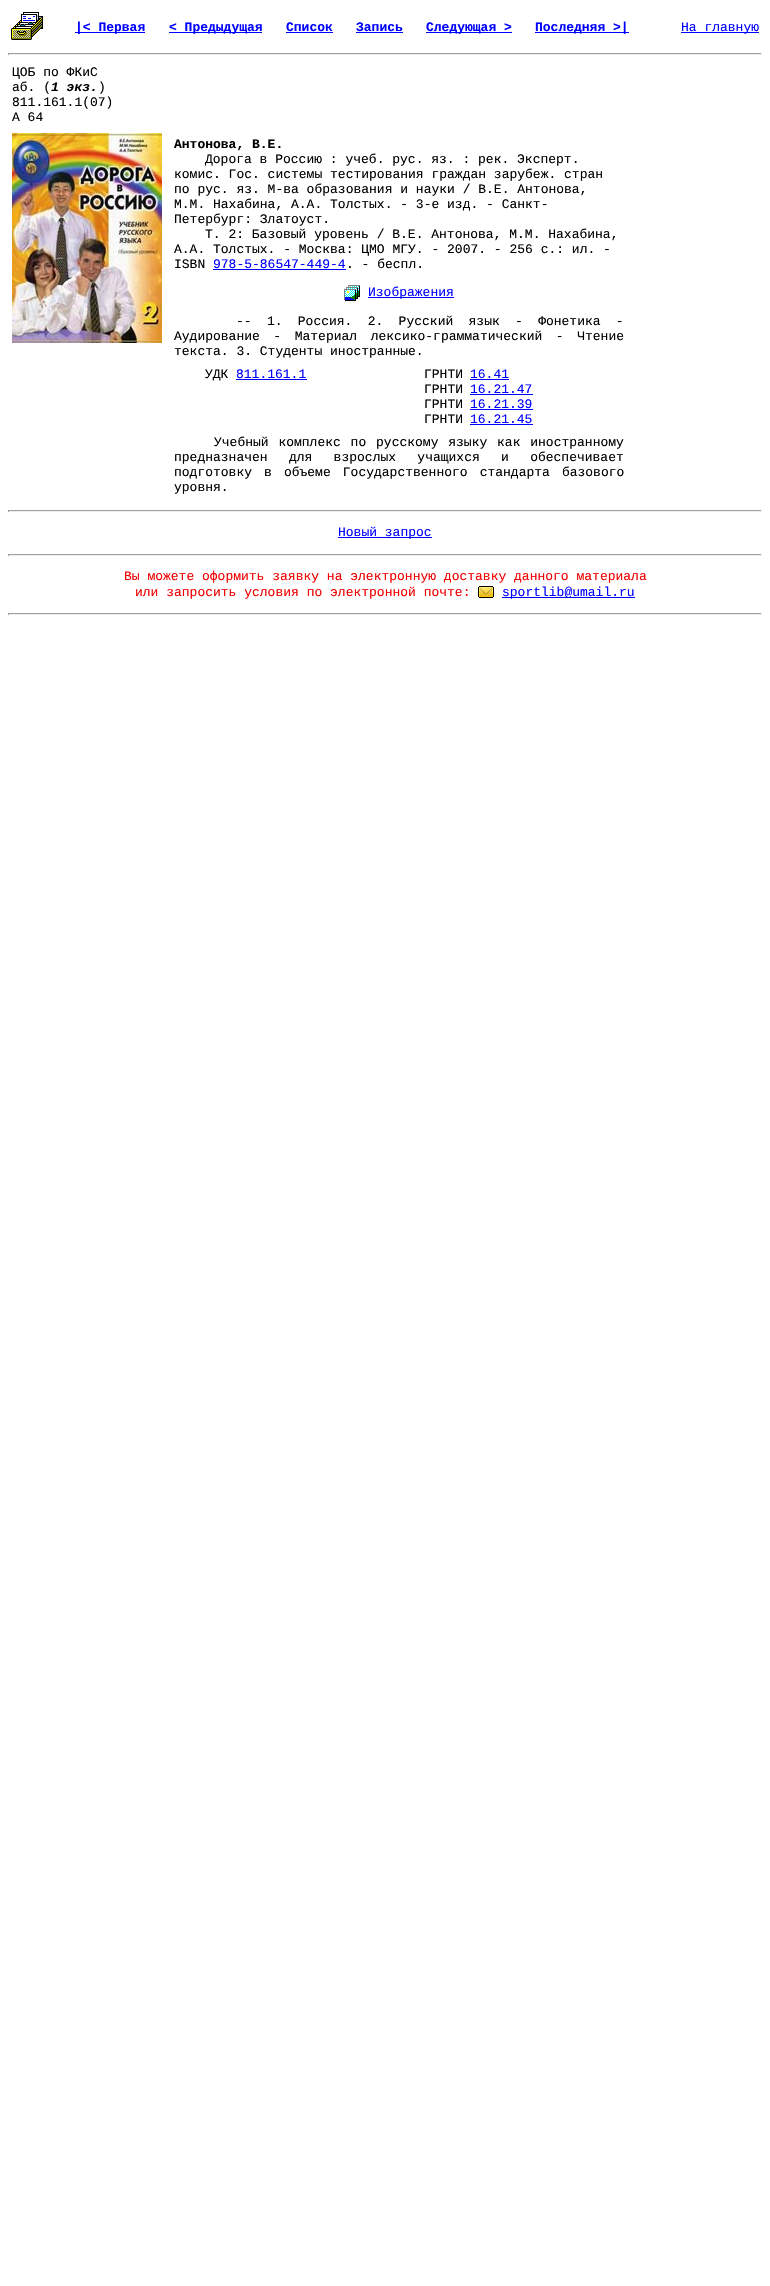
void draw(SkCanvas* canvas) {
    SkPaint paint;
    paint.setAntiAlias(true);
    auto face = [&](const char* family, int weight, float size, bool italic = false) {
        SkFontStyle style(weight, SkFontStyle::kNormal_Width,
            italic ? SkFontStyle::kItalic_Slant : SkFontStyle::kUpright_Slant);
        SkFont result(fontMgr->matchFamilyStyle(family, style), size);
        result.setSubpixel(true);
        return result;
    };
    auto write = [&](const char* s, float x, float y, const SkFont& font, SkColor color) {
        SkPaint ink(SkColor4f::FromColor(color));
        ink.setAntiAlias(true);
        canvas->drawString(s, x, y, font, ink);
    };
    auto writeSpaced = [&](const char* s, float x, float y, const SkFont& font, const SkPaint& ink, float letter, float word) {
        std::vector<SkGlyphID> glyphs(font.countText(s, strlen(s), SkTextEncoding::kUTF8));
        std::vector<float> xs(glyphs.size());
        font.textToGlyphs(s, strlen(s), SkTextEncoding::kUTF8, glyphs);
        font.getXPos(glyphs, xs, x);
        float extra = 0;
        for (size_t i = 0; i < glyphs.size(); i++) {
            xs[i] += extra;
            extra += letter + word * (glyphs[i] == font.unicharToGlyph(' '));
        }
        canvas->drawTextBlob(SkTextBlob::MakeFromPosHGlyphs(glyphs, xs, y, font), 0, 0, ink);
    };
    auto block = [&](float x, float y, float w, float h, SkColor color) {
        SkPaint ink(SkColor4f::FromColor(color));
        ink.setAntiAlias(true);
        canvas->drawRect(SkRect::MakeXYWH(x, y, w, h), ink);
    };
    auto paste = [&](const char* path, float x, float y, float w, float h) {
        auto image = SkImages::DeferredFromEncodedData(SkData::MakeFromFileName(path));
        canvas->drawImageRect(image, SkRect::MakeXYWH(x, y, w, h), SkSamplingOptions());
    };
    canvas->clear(SK_ColorWHITE);
    paste("pic1.png", 11, 12, 32, 28);
    block(75, 32, 70, 1, SkColorSetRGB(0, 0, 255));
    auto kFont1 = face("Liberation Mono", 700, 13);
    write("|< Первая", 75, 31, kFont1, SkColorSetRGB(0, 0, 255));
    block(169, 32, 93, 1, SkColorSetRGB(0, 0, 255));
    write("< Предыдущая", 169, 31, kFont1, SkColorSetRGB(0, 0, 255));
    write("Список", 286, 31, kFont1, SkColorSetRGB(0, 0, 255));
    block(286, 32, 47, 1, SkColorSetRGB(0, 0, 255));
    write("Запись", 356, 31, kFont1, SkColorSetRGB(0, 0, 255));
    block(356, 32, 47, 1, SkColorSetRGB(0, 0, 255));
    block(426, 32, 86, 1, SkColorSetRGB(0, 0, 255));
    write("Следующая >", 426, 31, kFont1, SkColorSetRGB(0, 0, 255));
    block(535, 32, 94, 1, SkColorSetRGB(0, 0, 255));
    write("Последняя >|", 535, 31, kFont1, SkColorSetRGB(0, 0, 255));
    block(681, 32, 78, 1, SkColorSetRGB(0, 0, 255));
    auto kFont2 = face("Liberation Mono", 400, 13);
    write("На главную", 681, 31, kFont2, SkColorSetRGB(0, 0, 255));
    block(8, 53, 754, 1, SkColorSetRGB(159, 159, 159));
    block(761, 53, 1, 2, SkColorSetRGB(238, 238, 238));
    block(8, 54, 754, 1, SkColorSetRGB(238, 238, 238));
    block(8, 53, 1, 2, SkColorSetRGB(159, 159, 159));
    write("ЦОБ по ФКиС", 12, 76, kFont2, SK_ColorBLACK);
    write("аб. (", 12, 91, kFont2, SK_ColorBLACK);
    auto kFont3 = face("Liberation Mono", 700, 13, true);
    write("1 экз.", 51, 91, kFont3, SK_ColorBLACK);
    write(")", 98, 91, kFont2, SK_ColorBLACK);
    write("811.161.1(07)", 12, 106, kFont2, SK_ColorBLACK);
    write("А 64", 12, 121, kFont2, SK_ColorBLACK);
    paste("pic2.png", 12, 133, 150, 210);
    write("Антонова, В.Е.", 174, 148, kFont1, SK_ColorBLACK);
    write("Дорога в Россию : учеб. рус. яз. : рек. Эксперт.", 205, 163, kFont2, SK_ColorBLACK);
    write("комис. Гос. системы тестирования граждан зарубеж. стран", 174, 178, kFont2, SK_ColorBLACK);
    write("по рус. яз. М-ва образования и науки / В.Е. Антонова,", 174, 193, kFont2, SK_ColorBLACK);
    write("М.М. Нахабина, А.А. Толстых. - 3-е изд. - Санкт-", 174, 208, kFont2, SK_ColorBLACK);
    write("Петербург: Златоуст.", 174, 223, kFont2, SK_ColorBLACK);
    write("Т. 2: Базовый уровень / В.Е. Антонова, М.М. Нахабина,", 205, 238, kFont2, SK_ColorBLACK);
    write("А.А. Толстых. - Москва: ЦМО МГУ. - 2007. - 256 с.: ил. -", 174, 253, kFont2, SK_ColorBLACK);
    write("ISBN", 174, 268, kFont2, SK_ColorBLACK);
    write("978-5-86547-449-4", 213, 268, kFont2, SkColorSetRGB(0, 0, 255));
    block(213, 269, 133, 1, SkColorSetRGB(0, 0, 255));
    write(". - беспл.", 346, 268, kFont2, SK_ColorBLACK);
    paste("pic3.png", 344, 285, 16, 16);
    block(368, 297, 86, 1, SkColorSetRGB(0, 0, 255));
    write("Изображения", 368, 296, kFont2, SkColorSetRGB(0, 0, 255));
    paint.setColor(SK_ColorBLACK);
    writeSpaced("-- 1. Россия. 2. Русский язык - Фонетика -", 236, 325, kFont2, paint, 0, 7.5f);
    writeSpaced("Аудирование - Материал лексико-грамматический - Чтение", 174, 340, kFont2, paint, 0, 5.75f);
    write("текста. 3. Студенты иностранные.", 174, 355, kFont2, SK_ColorBLACK);
    write("УДК", 205, 378, kFont2, SK_ColorBLACK);
    write("811.161.1", 236, 378, kFont2, SkColorSetRGB(0, 0, 255));
    block(236, 379, 71, 1, SkColorSetRGB(0, 0, 255));
    write("ГРНТИ", 424, 378, kFont2, SK_ColorBLACK);
    write("16.41", 470, 378, kFont2, SkColorSetRGB(0, 0, 255));
    block(470, 379, 39, 1, SkColorSetRGB(0, 0, 255));
    write("ГРНТИ", 424, 393, kFont2, SK_ColorBLACK);
    write("16.21.47", 470, 393, kFont2, SkColorSetRGB(0, 0, 255));
    block(470, 394, 63, 1, SkColorSetRGB(0, 0, 255));
    write("ГРНТИ", 424, 408, kFont2, SK_ColorBLACK);
    write("16.21.39", 470, 408, kFont2, SkColorSetRGB(0, 0, 255));
    block(470, 409, 63, 1, SkColorSetRGB(0, 0, 255));
    write("ГРНТИ", 424, 423, kFont2, SK_ColorBLACK);
    write("16.21.45", 470, 423, kFont2, SkColorSetRGB(0, 0, 255));
    block(470, 424, 63, 1, SkColorSetRGB(0, 0, 255));
    writeSpaced("Учебный комплекс по русскому языку как иностранному", 214, 446, kFont2, paint, 0, 2);
    writeSpaced("предназначен для взрослых учащихся и обеспечивает", 174, 461, kFont2, paint, 0, 13.5f);
    writeSpaced("подготовку в объеме Государственного стандарта базового", 174, 476, kFont2, paint, 0, 4.25f);
    write("уровня.", 174, 491, kFont2, SK_ColorBLACK);
    block(8, 510, 754, 1, SkColorSetRGB(159, 159, 159));
    block(761, 510, 1, 2, SkColorSetRGB(238, 238, 238));
    block(8, 511, 754, 1, SkColorSetRGB(238, 238, 238));
    block(8, 510, 1, 2, SkColorSetRGB(159, 159, 159));
    block(338, 537, 94, 1, SkColorSetRGB(0, 0, 255));
    write("Новый запрос", 338, 536, kFont2, SkColorSetRGB(0, 0, 255));
    block(8, 554, 754, 1, SkColorSetRGB(159, 159, 159));
    block(761, 554, 1, 2, SkColorSetRGB(238, 238, 238));
    block(8, 555, 754, 1, SkColorSetRGB(238, 238, 238));
    block(8, 554, 1, 2, SkColorSetRGB(159, 159, 159));
    write("Вы можете оформить заявку на электронную доставку данного материала", 124, 580, kFont2, SkColorSetRGB(240, 0, 0));
    write("или запросить условия по электронной почте:", 135, 596, kFont2, SkColorSetRGB(240, 0, 0));
    paste("pic4.png", 478, 586, 16, 12);
    block(502, 597, 133, 1, SkColorSetRGB(0, 0, 255));
    write("sportlib@umail.ru", 502, 596, kFont2, SkColorSetRGB(0, 0, 255));
    block(8, 613, 754, 1, SkColorSetRGB(159, 159, 159));
    block(761, 613, 1, 2, SkColorSetRGB(238, 238, 238));
    block(8, 614, 754, 1, SkColorSetRGB(238, 238, 238));
    block(8, 613, 1, 2, SkColorSetRGB(159, 159, 159));
}
